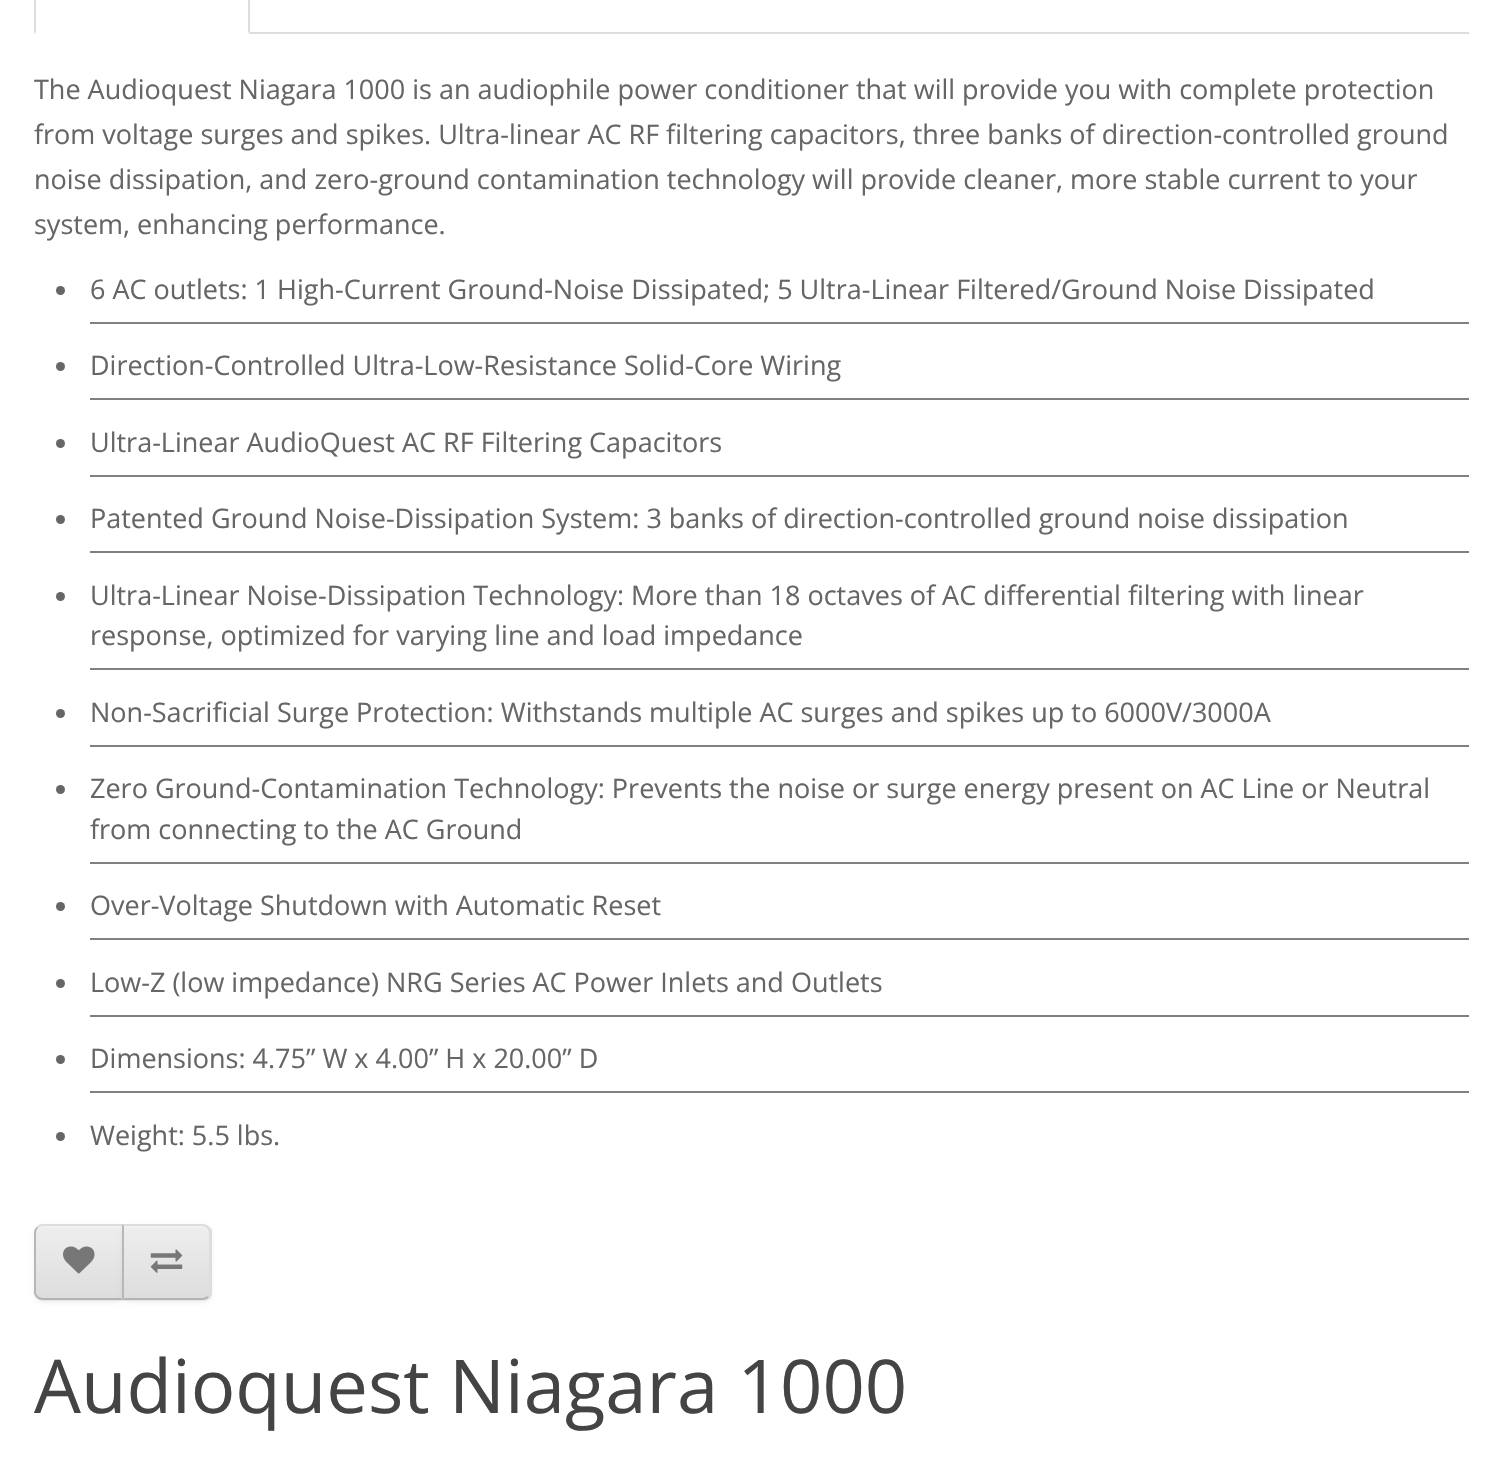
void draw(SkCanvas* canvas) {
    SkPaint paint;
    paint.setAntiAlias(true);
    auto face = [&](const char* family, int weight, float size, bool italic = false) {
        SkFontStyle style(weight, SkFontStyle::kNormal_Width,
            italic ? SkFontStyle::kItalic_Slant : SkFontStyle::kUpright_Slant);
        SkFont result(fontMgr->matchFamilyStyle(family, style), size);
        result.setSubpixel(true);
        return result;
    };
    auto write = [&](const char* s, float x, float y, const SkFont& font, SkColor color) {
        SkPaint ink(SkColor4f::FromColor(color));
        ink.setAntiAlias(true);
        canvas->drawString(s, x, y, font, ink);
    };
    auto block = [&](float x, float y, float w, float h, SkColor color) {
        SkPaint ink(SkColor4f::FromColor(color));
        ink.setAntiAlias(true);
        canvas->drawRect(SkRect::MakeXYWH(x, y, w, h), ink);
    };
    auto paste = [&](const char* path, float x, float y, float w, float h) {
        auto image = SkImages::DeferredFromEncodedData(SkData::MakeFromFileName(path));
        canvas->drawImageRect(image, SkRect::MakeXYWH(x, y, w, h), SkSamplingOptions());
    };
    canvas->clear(SK_ColorWHITE);
    block(250, 32, 1219, 2, SkColorSetRGB(221, 221, 221));
    paint.setColor(SkColorSetRGB(221, 221, 221));
    canvas->drawPath(SkPathBuilder().moveTo(247, -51).cubicTo(248, -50, 249, -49, 250, -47).lineTo(250, 34).lineTo(248, 32).lineTo(248, -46).lineTo(246, -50).close().detach(), paint);
    canvas->drawPath(SkPathBuilder().moveTo(37, -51).cubicTo(35, -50, 34, -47, 34, -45).lineTo(34, 34).lineTo(36, 32).lineTo(36, -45).cubicTo(36, -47, 37, -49, 38, -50).close().detach(), paint);
    auto kFont1 = face("Open Sans", 400, 27);
    write("The Audioquest Niagara 1000 is an audiophile power conditioner that will provide you with complete protection", 34, 99, kFont1, SkColorSetRGB(102, 102, 102));
    write("from voltage surges and spikes. Ultra-linear AC RF filtering capacitors, three banks of direction-controlled ground", 34, 144, kFont1, SkColorSetRGB(102, 102, 102));
    write("noise dissipation, and zero-ground contamination technology will provide cleaner, more stable current to your", 34, 189, kFont1, SkColorSetRGB(102, 102, 102));
    write("system, enhancing performance.", 34, 234, kFont1, SkColorSetRGB(102, 102, 102));
    block(90, 322, 1379, 2, SkColorSetRGB(128, 128, 128));
    paint.setColor(SkColorSetRGB(102, 102, 102));
    canvas->drawCircle(60.5f, 290.5f, 4.5f, paint);
    write("6 AC outlets: 1 High-Current Ground-Noise Dissipated; 5 Ultra-Linear Filtered/Ground Noise Dissipated", 90, 299, kFont1, SkColorSetRGB(102, 102, 102));
    block(90, 398, 1379, 2, SkColorSetRGB(128, 128, 128));
    canvas->drawCircle(60.5f, 366.5f, 4.5f, paint);
    write("Direction-Controlled Ultra-Low-Resistance Solid-Core Wiring", 90, 375, kFont1, SkColorSetRGB(102, 102, 102));
    block(90, 475, 1379, 2, SkColorSetRGB(128, 128, 128));
    canvas->drawCircle(60.5f, 443.5f, 4.5f, paint);
    write("Ultra-Linear AudioQuest AC RF Filtering Capacitors", 90, 452, kFont1, SkColorSetRGB(102, 102, 102));
    block(90, 551, 1379, 2, SkColorSetRGB(128, 128, 128));
    canvas->drawCircle(60.5f, 519.5f, 4.5f, paint);
    write("Patented Ground Noise-Dissipation System: 3 banks of direction-controlled ground noise dissipation", 90, 528, kFont1, SkColorSetRGB(102, 102, 102));
    block(90, 668, 1379, 2, SkColorSetRGB(128, 128, 128));
    canvas->drawCircle(60.5f, 596.5f, 4.5f, paint);
    write("Ultra-Linear Noise-Dissipation Technology: More than 18 octaves of AC differential filtering with linear", 90, 605, kFont1, SkColorSetRGB(102, 102, 102));
    write("response, optimized for varying line and load impedance", 90, 645, kFont1, SkColorSetRGB(102, 102, 102));
    block(90, 745, 1379, 2, SkColorSetRGB(128, 128, 128));
    canvas->drawCircle(60.5f, 713.5f, 4.5f, paint);
    write("Non-Sacrificial Surge Protection: Withstands multiple AC surges and spikes up to 6000V/3000A", 90, 722, kFont1, SkColorSetRGB(102, 102, 102));
    block(90, 862, 1379, 2, SkColorSetRGB(128, 128, 128));
    canvas->drawCircle(60.5f, 789.5f, 4.5f, paint);
    write("Zero Ground-Contamination Technology: Prevents the noise or surge energy present on AC Line or Neutral", 90, 798, kFont1, SkColorSetRGB(102, 102, 102));
    write("from connecting to the AC Ground", 90, 839, kFont1, SkColorSetRGB(102, 102, 102));
    block(90, 938, 1379, 2, SkColorSetRGB(128, 128, 128));
    canvas->drawCircle(60.5f, 906.5f, 4.5f, paint);
    write("Over-Voltage Shutdown with Automatic Reset", 90, 915, kFont1, SkColorSetRGB(102, 102, 102));
    block(90, 1015, 1379, 2, SkColorSetRGB(128, 128, 128));
    canvas->drawCircle(60.5f, 983.5f, 4.5f, paint);
    write("Low-Z (low impedance) NRG Series AC Power Inlets and Outlets", 90, 992, kFont1, SkColorSetRGB(102, 102, 102));
    block(90, 1091, 1379, 2, SkColorSetRGB(128, 128, 128));
    canvas->drawCircle(60.5f, 1059.5f, 4.5f, paint);
    write("Dimensions: 4.75” W x 4.00” H x 20.00” D", 90, 1068, kFont1, SkColorSetRGB(102, 102, 102));
    canvas->drawCircle(60.5f, 1136.5f, 4.5f, paint);
    write("Weight: 5.5 lbs.", 90, 1145, kFont1, SkColorSetRGB(102, 102, 102));
    paint.setColor(SkColorSetARGB(13, 0, 0, 0));
    paint.setMaskFilter(SkMaskFilter::MakeBlur(kNormal_SkBlurStyle, 2));
    canvas->drawRoundRect(SkRect::MakeXYWH(34, 1226, 90, 77), 9, 9, paint);
    paint.setMaskFilter(nullptr);
    paint.setColor(SkColorSetRGB(231, 231, 231));
    canvas->drawPath(SkPathBuilder().moveTo(43, 1224).lineTo(124, 1224).lineTo(124, 1301).lineTo(43, 1301).cubicTo(38, 1301, 34, 1297, 34, 1292).lineTo(34, 1233).cubicTo(34, 1228, 38, 1224, 43, 1224).close().detach(), paint);
    canvas->save();
    canvas->clipPath(SkPathBuilder().moveTo(43, 1224).lineTo(124, 1224).lineTo(124, 1301).lineTo(43, 1301).cubicTo(38, 1301, 34, 1297, 34, 1292).lineTo(34, 1233).cubicTo(34, 1228, 38, 1224, 43, 1224).close().detach(), true);
    {
        const SkColor colors[] = {SkColorSetRGB(238, 238, 238), SkColorSetRGB(221, 221, 221)};
        const float stops[] = {0, 1};
        const SkPoint ends[] = {{79, 1226}, {79, 1298}};
        paint.setShader(SkGradientShader::MakeLinear(ends, colors, stops, 2, SkTileMode::kClamp));
        paint.setAlpha(255);
    }
    canvas->drawRect(SkRect::MakeXYWH(34, 1226, 88, 72), paint);
    canvas->restore();
    paint.setShader(nullptr);
    paint.setColor(SkColorSetRGB(241, 241, 241));
    canvas->drawPath(SkPathBuilder().moveTo(43, 1228).lineTo(122, 1228).lineTo(122, 1226).lineTo(43, 1226).cubicTo(39, 1226, 36, 1229, 36, 1233).lineTo(36, 1235).cubicTo(36, 1232, 39, 1228, 43, 1228).close().detach(), paint);
    paint.setColor(SkColorSetRGB(221, 221, 221));
    canvas->drawPath(SkPathBuilder().moveTo(43, 1224).cubicTo(40, 1224, 38, 1225, 37, 1227).lineTo(38, 1228).cubicTo(39, 1227, 41, 1226, 43, 1226).lineTo(122, 1226).lineTo(124, 1224).close().detach(), paint);
    paint.setColor(SkColorSetRGB(179, 179, 179));
    canvas->drawPath(SkPathBuilder().moveTo(123, 1300).lineTo(43, 1300).cubicTo(41, 1300, 38, 1299, 37, 1298).lineTo(38, 1296).cubicTo(39, 1297, 41, 1298, 43, 1298).lineTo(121, 1298).close().detach(), paint);
    paint.setColor(SkColorSetRGB(183, 183, 183));
    canvas->drawPath(SkPathBuilder().moveTo(37, 1227).cubicTo(35, 1228, 34, 1231, 34, 1233).lineTo(34, 1292).cubicTo(34, 1294, 35, 1296, 37, 1298).lineTo(38, 1296).cubicTo(37, 1295, 36, 1294, 36, 1292).lineTo(36, 1233).cubicTo(36, 1231, 37, 1229, 38, 1228).close().detach(), paint);
    paste("pic1.png", 63, 1246, 32, 28);
    paint.setColor(SkColorSetARGB(13, 0, 0, 0));
    paint.setMaskFilter(SkMaskFilter::MakeBlur(kNormal_SkBlurStyle, 2));
    canvas->drawRoundRect(SkRect::MakeXYWH(122, 1226, 90, 77), 9, 9, paint);
    paint.setMaskFilter(nullptr);
    paint.setColor(SkColorSetRGB(231, 231, 231));
    canvas->drawPath(SkPathBuilder().moveTo(122, 1224).lineTo(203, 1224).cubicTo(208, 1224, 212, 1228, 212, 1233).lineTo(212, 1292).cubicTo(212, 1297, 208, 1301, 203, 1301).lineTo(122, 1301).close().detach(), paint);
    canvas->save();
    canvas->clipPath(SkPathBuilder().moveTo(122, 1224).lineTo(203, 1224).cubicTo(208, 1224, 212, 1228, 212, 1233).lineTo(212, 1292).cubicTo(212, 1297, 208, 1301, 203, 1301).lineTo(122, 1301).close().detach(), true);
    {
        const SkColor colors[] = {SkColorSetRGB(238, 238, 238), SkColorSetRGB(221, 221, 221)};
        const float stops[] = {0, 1};
        const SkPoint ends[] = {{167, 1226}, {167, 1298}};
        paint.setShader(SkGradientShader::MakeLinear(ends, colors, stops, 2, SkTileMode::kClamp));
        paint.setAlpha(255);
    }
    canvas->drawRect(SkRect::MakeXYWH(124, 1226, 88, 72), paint);
    canvas->restore();
    paint.setShader(nullptr);
    paint.setColor(SkColorSetRGB(241, 241, 241));
    canvas->drawPath(SkPathBuilder().moveTo(124, 1228).lineTo(202, 1228).cubicTo(206, 1228, 209, 1232, 209, 1235).lineTo(209, 1233).cubicTo(209, 1229, 206, 1226, 202, 1226).lineTo(124, 1226).close().detach(), paint);
    paint.setColor(SkColorSetRGB(221, 221, 221));
    canvas->drawPath(SkPathBuilder().moveTo(122, 1224).lineTo(124, 1226).lineTo(202, 1226).cubicTo(204, 1226, 206, 1227, 207, 1228).lineTo(209, 1227).cubicTo(207, 1225, 204, 1224, 202, 1224).close().detach(), paint);
    canvas->drawPath(SkPathBuilder().moveTo(212, 1294).lineTo(209, 1298).lineTo(207, 1296).lineTo(209, 1293).lineTo(209, 1243).cubicTo(209, 1239, 210, 1232, 207, 1228).lineTo(209, 1227).lineTo(212, 1230).close().detach(), paint);
    paint.setColor(SkColorSetRGB(179, 179, 179));
    canvas->drawPath(SkPathBuilder().moveTo(209, 1298).cubicTo(207, 1299, 204, 1300, 202, 1300).lineTo(122, 1300).lineTo(124, 1298).lineTo(202, 1298).cubicTo(204, 1298, 206, 1297, 207, 1296).close().detach(), paint);
    paint.setColor(SkColorSetRGB(183, 183, 183));
    canvas->drawPath(SkPathBuilder().moveTo(122, 1224).lineTo(122, 1300).lineTo(124, 1298).lineTo(124, 1226).close().detach(), paint);
    paste("pic2.png", 150, 1249, 33, 24);
    auto kFont2 = face("Open Sans", 400, 74.25f);
    write("Audioquest Niagara 1000", 34, 1413, kFont2, SkColorSetRGB(68, 68, 68));
}
